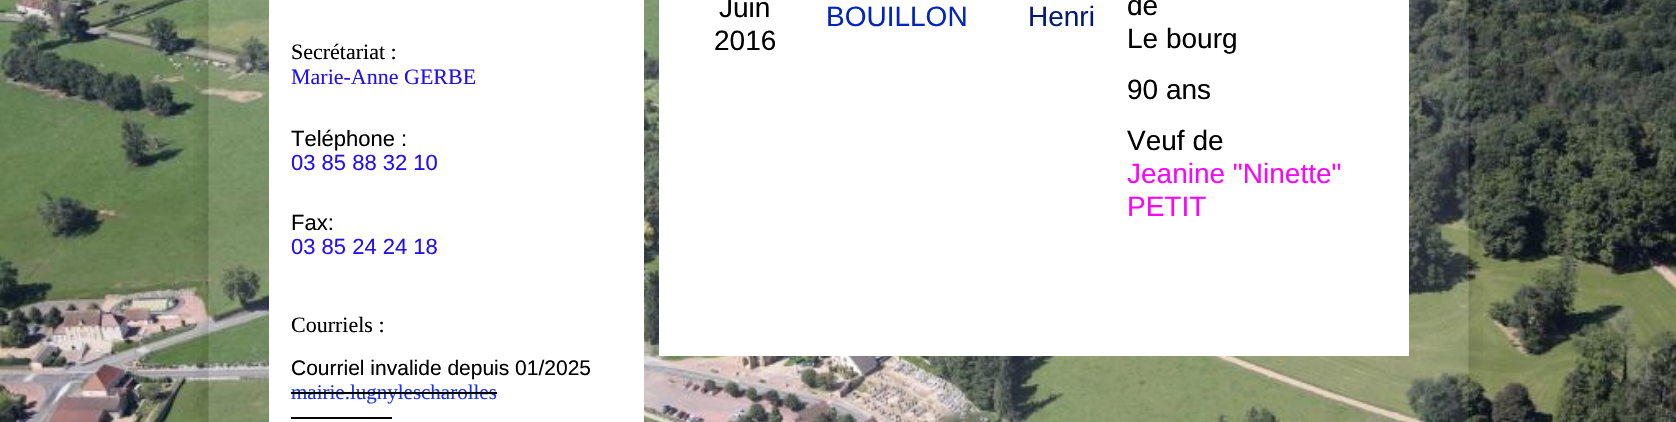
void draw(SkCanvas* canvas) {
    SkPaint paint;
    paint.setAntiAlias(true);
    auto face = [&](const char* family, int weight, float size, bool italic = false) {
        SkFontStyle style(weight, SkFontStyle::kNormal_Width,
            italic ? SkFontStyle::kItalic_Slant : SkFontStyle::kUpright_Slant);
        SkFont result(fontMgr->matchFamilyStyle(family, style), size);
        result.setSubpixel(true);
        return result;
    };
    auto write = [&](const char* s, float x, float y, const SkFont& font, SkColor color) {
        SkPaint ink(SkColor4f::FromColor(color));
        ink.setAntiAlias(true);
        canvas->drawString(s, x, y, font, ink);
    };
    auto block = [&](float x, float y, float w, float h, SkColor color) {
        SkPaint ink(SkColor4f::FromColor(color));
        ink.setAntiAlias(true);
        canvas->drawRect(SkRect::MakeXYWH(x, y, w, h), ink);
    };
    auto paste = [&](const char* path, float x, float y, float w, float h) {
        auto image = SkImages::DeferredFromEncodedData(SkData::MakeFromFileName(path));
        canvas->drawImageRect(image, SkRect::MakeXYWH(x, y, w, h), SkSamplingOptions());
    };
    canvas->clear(SK_ColorWHITE);
    paste("pic1.png", 0, 0, 1676, 422);
    paste("pic2.png", 193, 0, 1290, 422);
    block(269, 0, 375, 422, SK_ColorWHITE);
    auto kFont1 = face("Liberation Serif", 400, 22);
    write("Secrétariat :", 291, 59, kFont1, SK_ColorBLACK);
    write("Marie-Anne GERBE", 291, 84, kFont1, SkColorSetRGB(34, 17, 237));
    auto kFont2 = face("Liberation Sans", 400, 22);
    write("Teléphone :", 291, 146, kFont2, SK_ColorBLACK);
    write("03 85 88 32 10", 291, 170, kFont2, SkColorSetRGB(34, 17, 237));
    write("Fax:", 291, 230, kFont2, SK_ColorBLACK);
    write("03 85 24 24 18", 291, 254, kFont2, SkColorSetRGB(34, 17, 237));
    write("Courriels :", 291, 332, kFont1, SK_ColorBLACK);
    auto kFont3 = face("Liberation Sans", 400, 21);
    write("Courriel invalide depuis 01/2025", 291, 375, kFont3, SK_ColorBLACK);
    auto kFont4 = face("Liberation Serif", 400, 21);
    write("mairie.lugnylescharolles", 291, 399, kFont4, SkColorSetRGB(30, 54, 230));
    block(291, 392, 206, 2, SK_ColorBLACK);
    block(291, 417, 101, 2, SK_ColorBLACK);
    block(659, 0, 750, 356, SK_ColorWHITE);
    auto kFont5 = face("Liberation Sans", 400, 28);
    write("Juin", 719, 17, kFont5, SK_ColorBLACK);
    write("2016", 714, 50, kFont5, SK_ColorBLACK);
    write("BOUILLON", 826, 26, kFont5, SkColorSetRGB(3, 37, 188));
    write("Henri", 1028, 26, kFont5, SkColorSetRGB(5, 25, 114));
    write("de", 1127, 15, kFont5, SK_ColorBLACK);
    write("Le bourg", 1127, 48, kFont5, SK_ColorBLACK);
    write("90 ans", 1127, 99, kFont5, SK_ColorBLACK);
    write("Veuf de", 1127, 150, kFont5, SK_ColorBLACK);
    write("Jeanine \"Ninette\"", 1127, 183, kFont5, SkColorSetRGB(249, 5, 251));
    write("PETIT", 1127, 216, kFont5, SkColorSetRGB(249, 5, 251));
}
